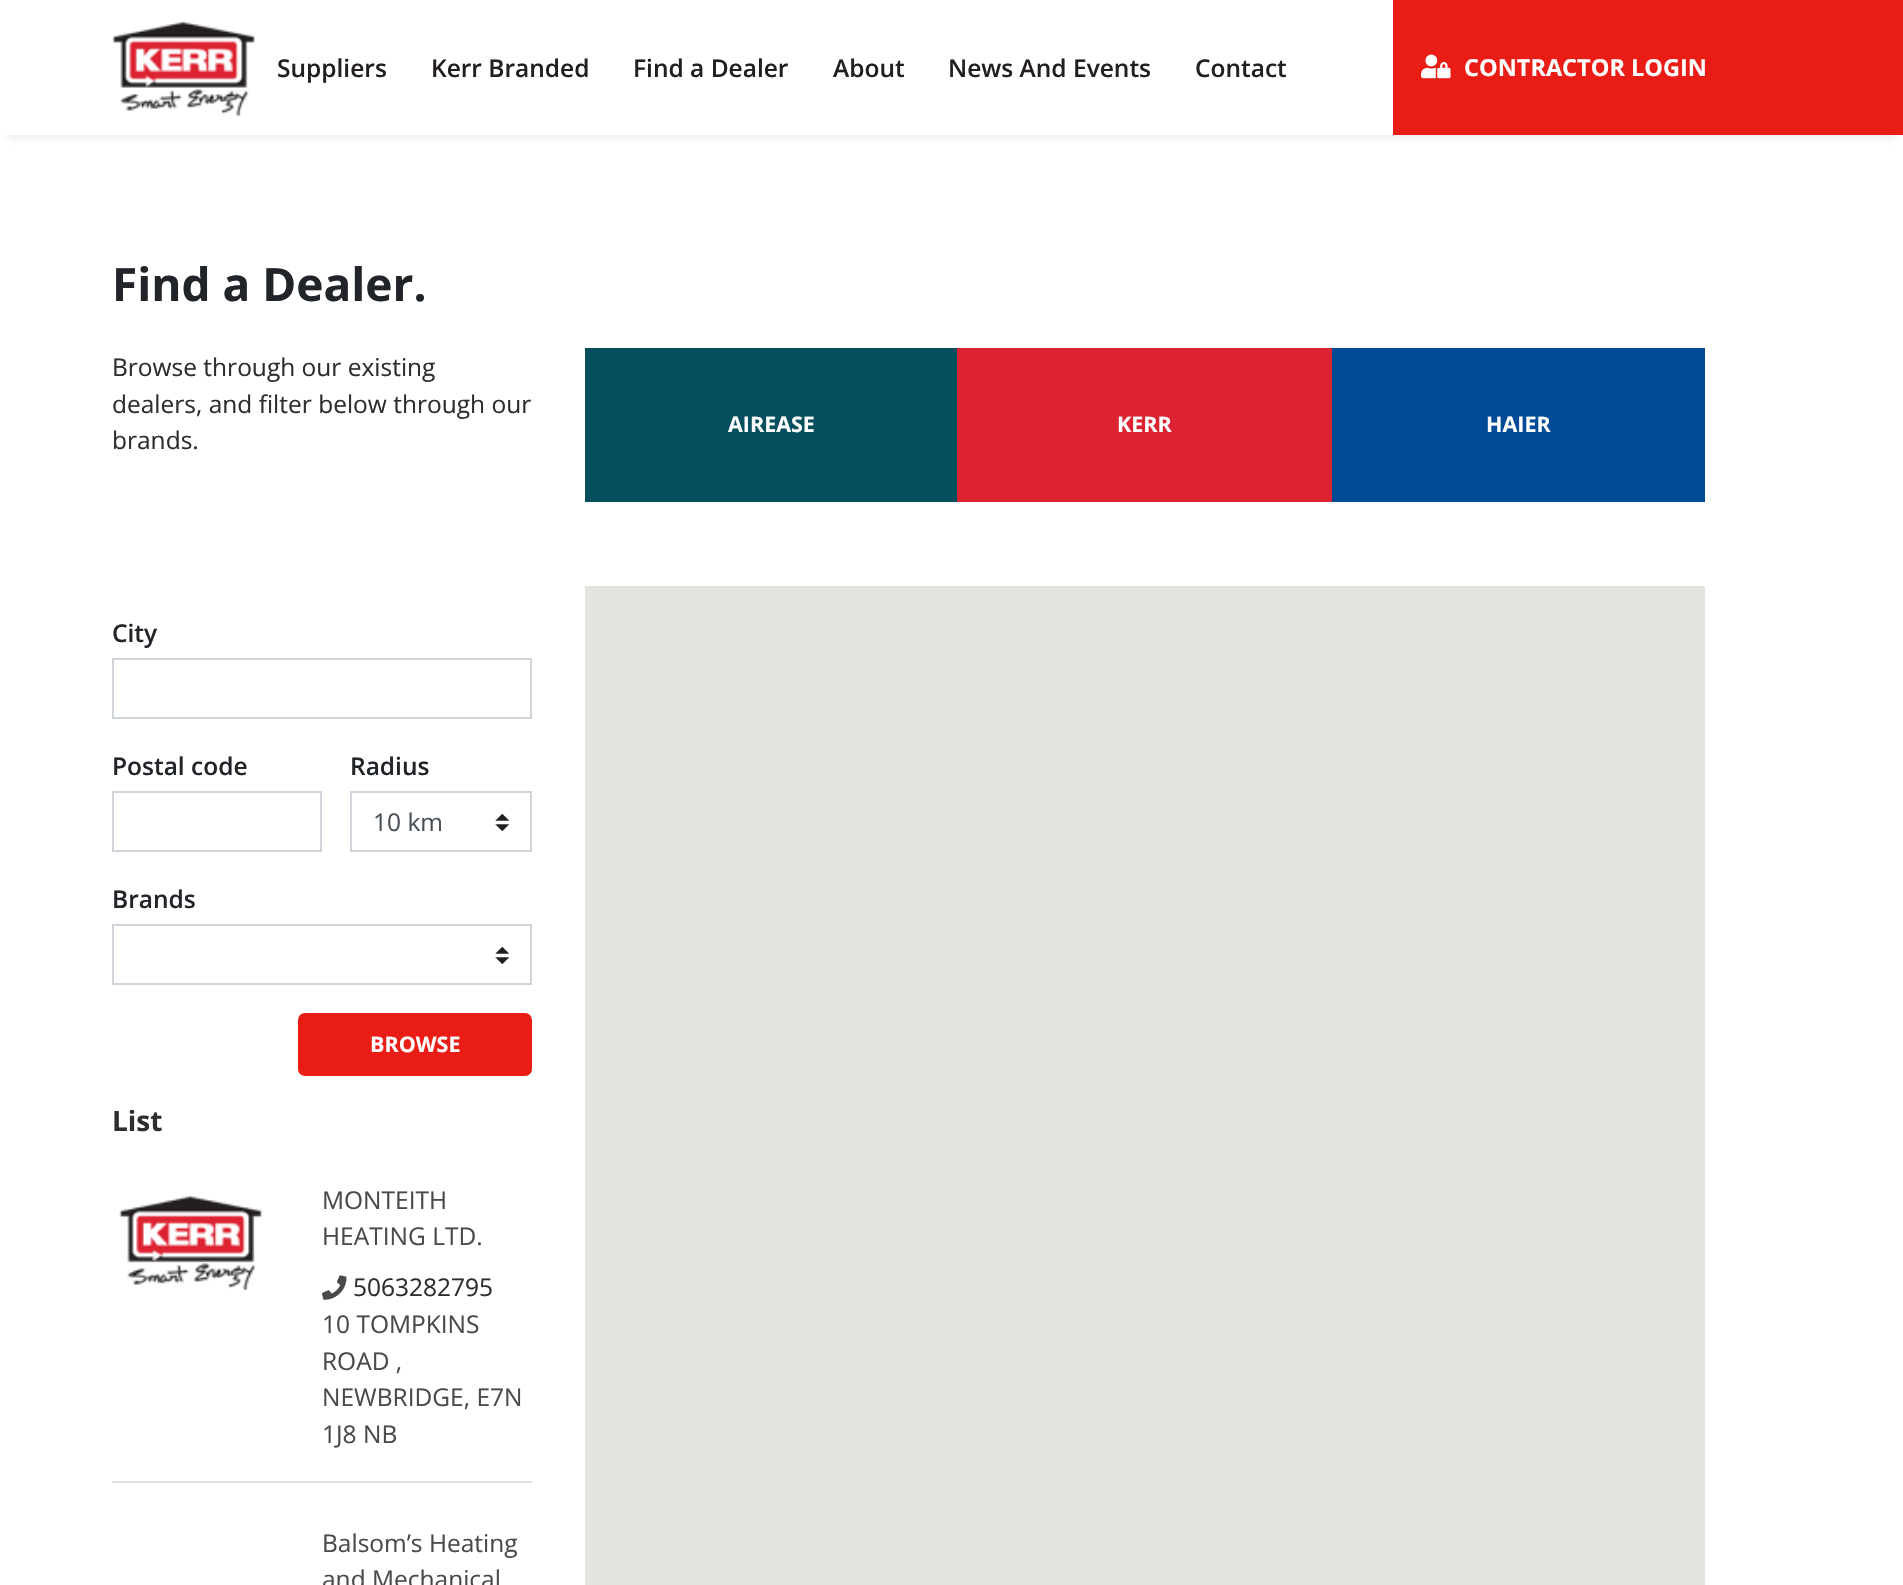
void draw(SkCanvas* canvas) {
    SkPaint paint;
    paint.setAntiAlias(true);
    auto face = [&](const char* family, int weight, float size, bool italic = false) {
        SkFontStyle style(weight, SkFontStyle::kNormal_Width,
            italic ? SkFontStyle::kItalic_Slant : SkFontStyle::kUpright_Slant);
        SkFont result(fontMgr->matchFamilyStyle(family, style), size);
        result.setSubpixel(true);
        return result;
    };
    auto write = [&](const char* s, float x, float y, const SkFont& font, SkColor color) {
        SkPaint ink(SkColor4f::FromColor(color));
        ink.setAntiAlias(true);
        canvas->drawString(s, x, y, font, ink);
    };
    auto block = [&](float x, float y, float w, float h, SkColor color) {
        SkPaint ink(SkColor4f::FromColor(color));
        ink.setAntiAlias(true);
        canvas->drawRect(SkRect::MakeXYWH(x, y, w, h), ink);
    };
    auto paste = [&](const char* path, float x, float y, float w, float h) {
        auto image = SkImages::DeferredFromEncodedData(SkData::MakeFromFileName(path));
        canvas->drawImageRect(image, SkRect::MakeXYWH(x, y, w, h), SkSamplingOptions());
    };
    canvas->clear(SK_ColorWHITE);
    canvas->save();
    canvas->clipPath(SkPathBuilder(SkPathFillType::kEvenOdd).moveTo(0, 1).lineTo(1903, 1).lineTo(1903, 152).lineTo(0, 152).close().moveTo(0, 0).lineTo(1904, 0).lineTo(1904, 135).lineTo(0, 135).close().detach(), true);
    paint.setColor(SkColorSetARGB(128, 209, 209, 209));
    paint.setMaskFilter(SkMaskFilter::MakeBlur(kNormal_SkBlurStyle, 4.5f));
    canvas->drawRect(SkRect::MakeXYWH(7, 16, 1890, 121), paint);
    paint.setMaskFilter(nullptr);
    canvas->restore();
    block(1393, 0, 510, 135, SkColorSetRGB(233, 29, 22));
    paste("pic1.png", 112, 21, 144, 95);
    auto kFont1 = face("Open Sans", 600, 24.5f);
    write("Suppliers", 277, 77, kFont1, SkColorSetRGB(35, 31, 32));
    write("Kerr Branded", 431, 77, kFont1, SkColorSetRGB(35, 31, 32));
    write("Find a Dealer", 633, 77, kFont1, SkColorSetRGB(35, 31, 32));
    write("About", 833, 77, kFont1, SkColorSetRGB(35, 31, 32));
    write("News And Events", 948, 77, kFont1, SkColorSetRGB(35, 31, 32));
    write("Contact", 1195, 77, kFont1, SkColorSetRGB(35, 31, 32));
    paste("pic2.png", 1421, 54, 30, 25);
    auto kFont2 = face("Open Sans", 700, 23.5f);
    write("CONTRACTOR LOGIN", 1464, 76, kFont2, SK_ColorWHITE);
    auto kFont3 = face("Open Sans", 700, 46);
    write("Find a Dealer.", 112, 301, kFont3, SkColorSetRGB(33, 37, 41));
    auto kFont4 = face("Open Sans", 400, 24.5f);
    write("Browse through our existing", 112, 376, kFont4, SkColorSetRGB(46, 46, 46));
    write("dealers, and filter below through our", 112, 413, kFont4, SkColorSetRGB(46, 46, 46));
    write("brands.", 112, 449, kFont4, SkColorSetRGB(46, 46, 46));
    block(585, 348, 372, 154, SkColorSetRGB(4, 79, 93));
    auto kFont5 = face("Open Sans", 700, 21.5f);
    write("AIREASE", 728, 432, kFont5, SK_ColorWHITE);
    block(957, 348, 375, 154, SkColorSetRGB(221, 35, 50));
    write("KERR", 1117, 432, kFont5, SK_ColorWHITE);
    block(1332, 348, 373, 154, SkColorSetRGB(0, 74, 150));
    write("HAIER", 1486, 432, kFont5, SK_ColorWHITE);
    write("City", 112, 642, kFont1, SkColorSetRGB(33, 37, 41));
    paint.setStyle(SkPaint::kStroke_Style);
    paint.setStrokeWidth(2);
    paint.setColor(SkColorSetRGB(206, 212, 218));
    canvas->drawRect(SkRect::MakeXYWH(113, 659, 418, 59), paint);
    write("Postal code", 112, 775, kFont1, SkColorSetRGB(33, 37, 41));
    canvas->drawRect(SkRect::MakeXYWH(113, 792, 208, 59), paint);
    write("Radius", 350, 775, kFont1, SkColorSetRGB(33, 37, 41));
    paste("pic3.png", 495, 814, 14, 17);
    canvas->drawRect(SkRect::MakeXYWH(351, 792, 180, 59), paint);
    write("10 km", 373, 831, kFont4, SkColorSetRGB(73, 80, 87));
    write("Brands", 112, 908, kFont1, SkColorSetRGB(33, 37, 41));
    paste("pic3.png", 495, 947, 14, 17);
    canvas->drawRect(SkRect::MakeXYWH(113, 925, 418, 59), paint);
    paint.setStyle(SkPaint::kFill_Style);
    paint.setColor(SkColorSetRGB(233, 29, 22));
    canvas->drawRoundRect(SkRect::MakeXYWH(299, 1014, 232, 61), 6, 6, paint);
    paint.setStyle(SkPaint::kStroke_Style);
    canvas->drawRoundRect(SkRect::MakeXYWH(299, 1014, 232, 61), 6, 6, paint);
    write("BROWSE", 370, 1052, kFont5, SK_ColorWHITE);
    auto kFont6 = face("Open Sans", 700, 28);
    write("List", 112, 1131, kFont6, SkColorSetRGB(46, 46, 46));
    block(112, 1481, 420, 2, SkColorSetRGB(222, 226, 230));
    paste("pic4.png", 119, 1195, 144, 95);
    write("MONTEITH", 322, 1209, kFont4, SkColorSetRGB(74, 74, 74));
    write("HEATING LTD.", 322, 1245, kFont4, SkColorSetRGB(74, 74, 74));
    paste("pic5.png", 322, 1275, 25, 25);
    write("5063282795", 353, 1296, kFont4, SkColorSetRGB(46, 46, 46));
    write("10 TOMPKINS", 322, 1333, kFont4, SkColorSetRGB(74, 74, 74));
    write("ROAD ,", 322, 1370, kFont4, SkColorSetRGB(74, 74, 74));
    write("NEWBRIDGE, E7N", 322, 1406, kFont4, SkColorSetRGB(74, 74, 74));
    write("1J8 NB", 322, 1443, kFont4, SkColorSetRGB(74, 74, 74));
    write("Balsom’s Heating", 322, 1552, kFont4, SkColorSetRGB(74, 74, 74));
    write("and Mechanical", 322, 1588, kFont4, SkColorSetRGB(74, 74, 74));
    block(585, 586, 1120, 999, SkColorSetRGB(229, 227, 223));
}
